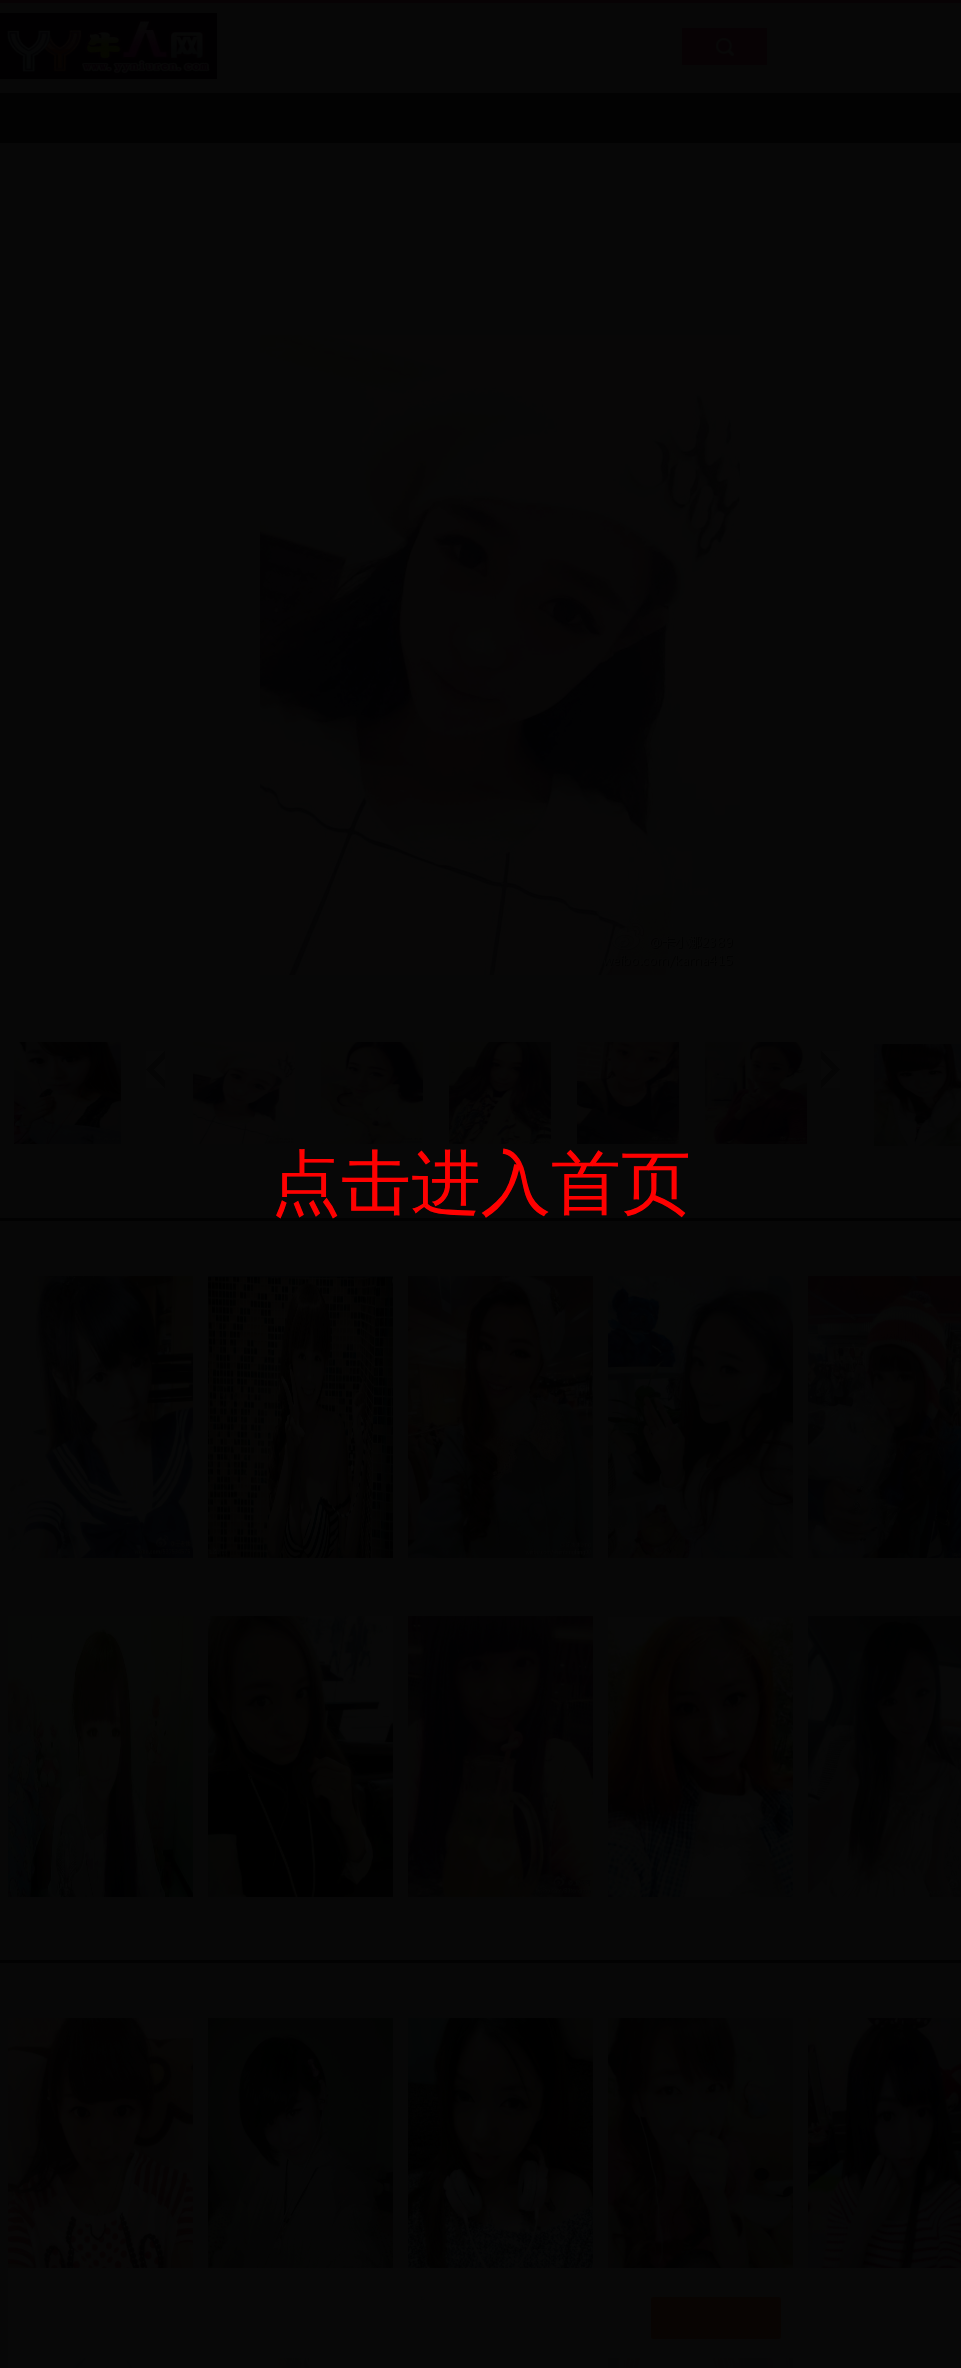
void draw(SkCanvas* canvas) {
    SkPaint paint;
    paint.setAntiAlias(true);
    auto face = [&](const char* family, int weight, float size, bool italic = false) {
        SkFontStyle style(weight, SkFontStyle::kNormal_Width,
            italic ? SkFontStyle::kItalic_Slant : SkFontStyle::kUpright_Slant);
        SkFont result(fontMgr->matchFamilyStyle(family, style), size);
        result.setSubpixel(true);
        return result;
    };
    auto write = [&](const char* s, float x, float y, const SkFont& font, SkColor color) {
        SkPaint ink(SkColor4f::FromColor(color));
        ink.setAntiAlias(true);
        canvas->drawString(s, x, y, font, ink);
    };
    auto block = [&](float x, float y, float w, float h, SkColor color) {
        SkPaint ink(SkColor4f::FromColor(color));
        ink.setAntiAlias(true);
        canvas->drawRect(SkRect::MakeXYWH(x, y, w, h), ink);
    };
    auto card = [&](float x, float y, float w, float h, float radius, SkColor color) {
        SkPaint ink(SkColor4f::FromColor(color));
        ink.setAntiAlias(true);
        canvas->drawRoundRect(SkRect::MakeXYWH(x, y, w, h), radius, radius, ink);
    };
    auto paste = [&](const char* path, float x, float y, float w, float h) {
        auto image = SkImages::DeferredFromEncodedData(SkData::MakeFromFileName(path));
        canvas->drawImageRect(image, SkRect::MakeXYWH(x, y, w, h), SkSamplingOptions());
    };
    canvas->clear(SkColorSetRGB(7, 7, 7));
    block(0, 0, 961, 3, SkColorSetRGB(7, 2, 4));
    paste("pic1.png", 0, 13, 217, 66);
    paste("pic2.png", 682, 28, 85, 37);
    block(0, 93, 961, 50, SkColorSetRGB(2, 2, 2));
    paste("pic3.png", 260, 335, 480, 640);
    paste("pic4.png", 14, 1042, 107, 102);
    paste("pic5.png", 146, 1051, 19, 37);
    paste("pic6.png", 193, 1042, 102, 102);
    paste("pic7.png", 321, 1042, 102, 102);
    paste("pic8.png", 449, 1042, 102, 102);
    paste("pic9.png", 577, 1042, 102, 102);
    paste("pic10.png", 705, 1042, 102, 102);
    paste("pic11.png", 821, 1051, 19, 37);
    paste("pic12.png", 874, 1044, 87, 102);
    block(0, 1218, 961, 3, SkColorSetRGB(2, 2, 2));
    auto kFont1 = face("WenQuanYi Zen Hei", 500, 70);
    write("点击进入首页", 271, 1207, kFont1, SkColorSetRGB(255, 0, 0));
    paste("pic13.png", 8, 1276, 185, 282);
    paste("pic14.png", 208, 1276, 185, 282);
    paste("pic15.png", 408, 1276, 185, 282);
    paste("pic16.png", 608, 1276, 185, 282);
    paste("pic17.png", 808, 1276, 153, 282);
    paste("pic18.png", 8, 1616, 185, 281);
    paste("pic19.png", 208, 1616, 185, 281);
    paste("pic20.png", 408, 1616, 185, 281);
    paste("pic21.png", 608, 1616, 185, 281);
    paste("pic22.png", 808, 1616, 153, 281);
    block(0, 1960, 961, 3, SkColorSetRGB(2, 2, 2));
    paste("pic23.png", 8, 2018, 185, 282);
    paste("pic24.png", 208, 2018, 185, 282);
    paste("pic25.png", 408, 2018, 185, 282);
    paste("pic26.png", 608, 2018, 185, 282);
    paste("pic27.png", 808, 2018, 153, 282);
    paste("pic28.png", 8, 2358, 185, 10);
    paste("pic29.png", 208, 2358, 185, 10);
    paste("pic30.png", 408, 2358, 185, 10);
    paste("pic31.png", 608, 2358, 185, 10);
    paste("pic32.png", 808, 2358, 153, 10);
    block(8, 2268, 953, 100, SkColorSetARGB(230, 8, 8, 8));
    card(651, 2297, 130, 42, 2, SkColorSetRGB(8, 4, 2));
}
